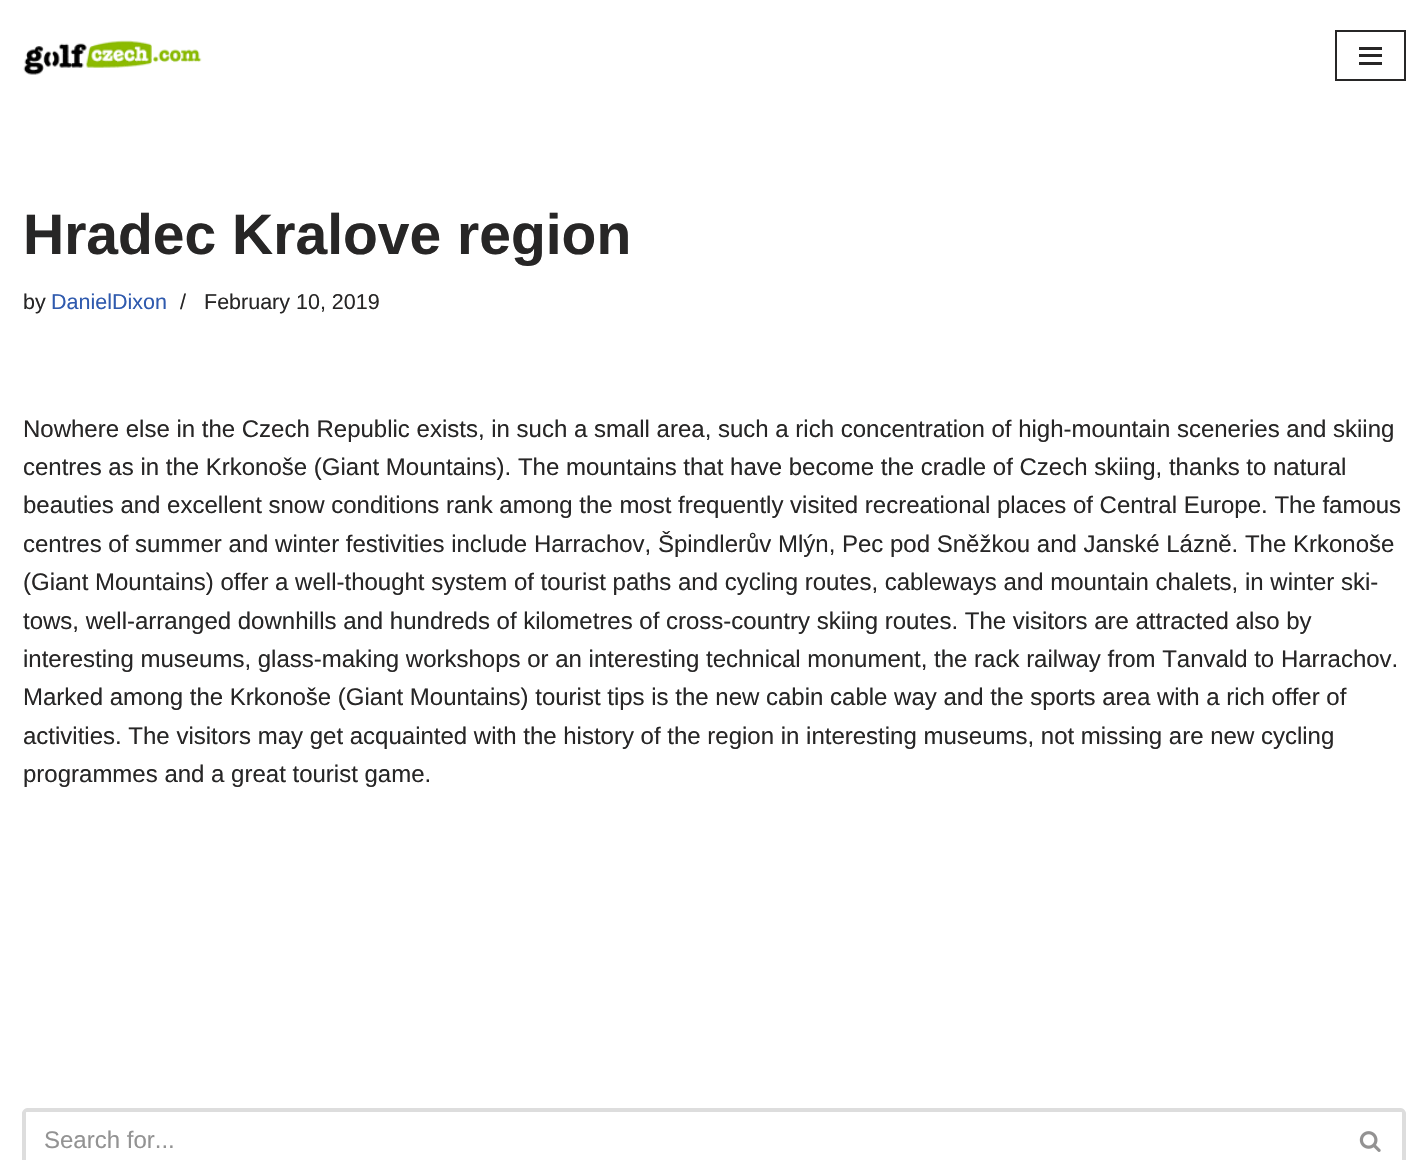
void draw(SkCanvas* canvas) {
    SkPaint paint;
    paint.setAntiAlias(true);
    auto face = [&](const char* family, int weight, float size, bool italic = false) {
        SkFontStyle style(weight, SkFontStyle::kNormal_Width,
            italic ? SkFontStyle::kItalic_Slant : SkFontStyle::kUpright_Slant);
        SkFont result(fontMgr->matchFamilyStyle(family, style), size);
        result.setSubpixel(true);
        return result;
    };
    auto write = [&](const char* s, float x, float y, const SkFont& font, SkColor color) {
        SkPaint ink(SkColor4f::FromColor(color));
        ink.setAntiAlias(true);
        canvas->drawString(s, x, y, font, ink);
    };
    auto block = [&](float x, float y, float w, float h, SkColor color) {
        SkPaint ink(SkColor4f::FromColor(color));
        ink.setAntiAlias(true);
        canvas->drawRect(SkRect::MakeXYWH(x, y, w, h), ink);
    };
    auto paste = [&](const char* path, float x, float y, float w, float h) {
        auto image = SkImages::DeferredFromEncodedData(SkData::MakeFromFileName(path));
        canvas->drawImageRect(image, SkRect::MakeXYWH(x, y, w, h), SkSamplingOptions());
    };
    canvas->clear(SK_ColorWHITE);
    paste("pic1.png", 23, 40, 179, 35);
    paint.setStyle(SkPaint::kStroke_Style);
    paint.setStrokeWidth(2);
    paint.setColor(SkColorSetRGB(39, 38, 38));
    canvas->drawRect(SkRect::MakeXYWH(1336, 31, 69, 49), paint);
    block(1359, 47, 23, 3, SkColorSetRGB(39, 38, 38));
    block(1359, 54, 23, 3, SkColorSetRGB(39, 38, 38));
    block(1359, 62, 23, 3, SkColorSetRGB(39, 38, 38));
    auto kFont1 = face("Liberation Sans", 700, 57);
    write("Hradec Kralove region", 23, 254, kFont1, SkColorSetRGB(39, 38, 38));
    auto kFont2 = face("Liberation Sans", 400, 21.5f);
    write("by", 23, 309, kFont2, SkColorSetRGB(39, 38, 38));
    write("DanielDixon", 51, 309, kFont2, SkColorSetRGB(47, 90, 174));
    write("/", 180, 309, kFont2, SkColorSetRGB(39, 38, 38));
    write("February 10, 2019", 204, 309, kFont2, SkColorSetRGB(39, 38, 38));
    auto kFont3 = face("Liberation Sans", 400, 24);
    write("Nowhere else in the Czech Republic exists, in such a small area, such a rich concentration of high-mountain sceneries and skiing", 23, 437, kFont3, SkColorSetRGB(39, 38, 38));
    write("centres as in the Krkonoše (Giant Mountains). The mountains that have become the cradle of Czech skiing, thanks to natural", 23, 475, kFont3, SkColorSetRGB(39, 38, 38));
    write("beauties and excellent snow conditions rank among the most frequently visited recreational places of Central Europe. The famous", 23, 513, kFont3, SkColorSetRGB(39, 38, 38));
    write("centres of summer and winter festivities include Harrachov, Špindlerův Mlýn, Pec pod Sněžkou and Janské Lázně. The Krkonoše", 23, 552, kFont3, SkColorSetRGB(39, 38, 38));
    write("(Giant Mountains) offer a well-thought system of tourist paths and cycling routes, cableways and mountain chalets, in winter ski-", 23, 590, kFont3, SkColorSetRGB(39, 38, 38));
    write("tows, well-arranged downhills and hundreds of kilometres of cross-country skiing routes. The visitors are attracted also by", 23, 629, kFont3, SkColorSetRGB(39, 38, 38));
    write("interesting museums, glass-making workshops or an interesting technical monument, the rack railway from Tanvald to Harrachov.", 23, 667, kFont3, SkColorSetRGB(39, 38, 38));
    write("Marked among the Krkonoše (Giant Mountains) tourist tips is the new cabin cable way and the sports area with a rich offer of", 23, 705, kFont3, SkColorSetRGB(39, 38, 38));
    write("activities. The visitors may get acquainted with the history of the region in interesting museums, not missing are new cycling", 23, 744, kFont3, SkColorSetRGB(39, 38, 38));
    write("programmes and a great tourist game.", 23, 782, kFont3, SkColorSetRGB(39, 38, 38));
    paint.setStyle(SkPaint::kFill_Style);
    paint.setColor(SkColorSetRGB(221, 221, 221));
    canvas->drawPath(SkPathBuilder(SkPathFillType::kEvenOdd).moveTo(27, 1108).lineTo(1338, 1108).lineTo(1338, 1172).lineTo(27, 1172).cubicTo(25, 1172, 22, 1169, 22, 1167).lineTo(22, 1113).cubicTo(22, 1111, 25, 1108, 27, 1108).close().moveTo(27, 1112).lineTo(1338, 1112).lineTo(1338, 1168).lineTo(27, 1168).cubicTo(26, 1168, 26, 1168, 26, 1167).lineTo(26, 1113).cubicTo(26, 1112, 26, 1112, 27, 1112).close().detach(), paint);
    write("Search for...", 44, 1148, kFont3, SkColorSetRGB(147, 147, 147));
    canvas->drawPath(SkPathBuilder(SkPathFillType::kEvenOdd).moveTo(1338, 1108).lineTo(1401, 1108).cubicTo(1403, 1108, 1406, 1111, 1406, 1113).lineTo(1406, 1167).cubicTo(1406, 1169, 1403, 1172, 1401, 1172).lineTo(1338, 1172).close().moveTo(1338, 1112).lineTo(1401, 1112).cubicTo(1402, 1112, 1402, 1112, 1402, 1113).lineTo(1402, 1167).cubicTo(1402, 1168, 1402, 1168, 1401, 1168).lineTo(1338, 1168).close().detach(), paint);
    paste("pic2.png", 1359, 1131, 22, 21);
}
